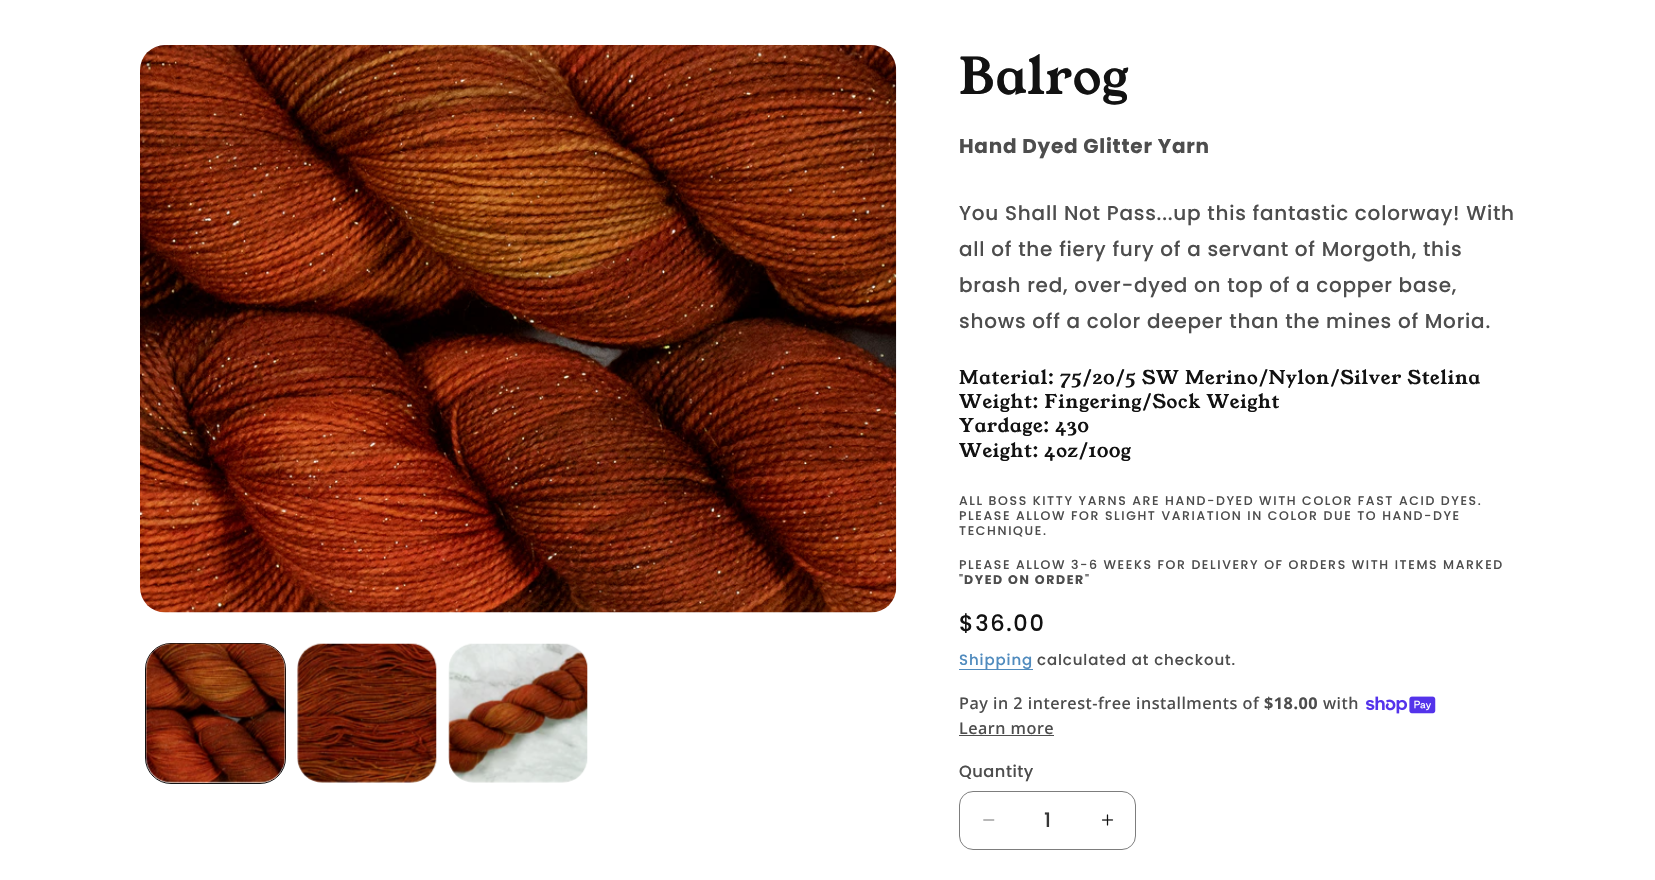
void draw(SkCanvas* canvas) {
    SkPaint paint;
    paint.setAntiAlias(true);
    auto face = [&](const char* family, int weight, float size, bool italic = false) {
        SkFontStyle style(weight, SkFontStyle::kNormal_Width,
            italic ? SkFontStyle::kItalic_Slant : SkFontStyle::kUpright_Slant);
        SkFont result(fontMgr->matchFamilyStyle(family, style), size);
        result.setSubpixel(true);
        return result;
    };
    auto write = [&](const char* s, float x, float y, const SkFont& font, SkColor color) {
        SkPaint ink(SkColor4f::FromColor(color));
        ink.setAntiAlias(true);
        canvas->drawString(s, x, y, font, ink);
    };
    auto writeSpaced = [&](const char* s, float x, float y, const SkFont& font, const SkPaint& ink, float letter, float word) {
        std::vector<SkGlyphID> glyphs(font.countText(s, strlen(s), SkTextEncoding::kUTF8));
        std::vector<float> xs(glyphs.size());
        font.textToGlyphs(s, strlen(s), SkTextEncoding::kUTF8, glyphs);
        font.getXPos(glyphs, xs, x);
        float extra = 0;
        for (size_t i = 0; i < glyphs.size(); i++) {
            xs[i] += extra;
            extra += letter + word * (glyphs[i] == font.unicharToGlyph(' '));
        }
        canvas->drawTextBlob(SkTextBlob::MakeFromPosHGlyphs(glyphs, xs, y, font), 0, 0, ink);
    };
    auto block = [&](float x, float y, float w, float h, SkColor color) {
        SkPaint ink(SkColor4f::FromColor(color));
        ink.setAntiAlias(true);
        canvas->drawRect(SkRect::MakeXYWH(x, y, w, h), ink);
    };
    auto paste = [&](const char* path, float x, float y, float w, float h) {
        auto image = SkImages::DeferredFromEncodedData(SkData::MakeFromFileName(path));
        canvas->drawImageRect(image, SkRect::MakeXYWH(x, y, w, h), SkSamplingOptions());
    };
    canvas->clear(SK_ColorWHITE);
    paste("pic1.png", 140, 45, 757, 568);
    paint.setStyle(SkPaint::kStroke_Style);
    paint.setStrokeWidth(1);
    paint.setColor(SkColorSetRGB(18, 18, 18));
    canvas->drawRoundRect(SkRect::MakeXYWH(145.5f, 643.5f, 140, 140), 25.5f, 25.5f, paint);
    paste("pic2.png", 146, 643, 140, 140);
    paste("pic3.png", 297, 643, 140, 140);
    paste("pic4.png", 448, 643, 140, 140);
    auto kFont1 = face("Young Serif", 400, 50);
    paint.setStyle(SkPaint::kFill_Style);
    writeSpaced("Balrog", 959, 94, kFont1, paint, 0.75f, 0);
    auto kFont2 = face("Poppins", 700, 20);
    paint.setColor(SkColorSetRGB(77, 77, 77));
    writeSpaced("Hand Dyed Glitter Yarn", 959, 153, kFont2, paint, 0.75f, 0);
    auto kFont3 = face("Poppins", 500, 20);
    writeSpaced("You Shall Not Pass...up this fantastic colorway! With", 959, 220, kFont3, paint, 0.75f, 0);
    writeSpaced("all of the fiery fury of a servant of Morgoth, this", 959, 256, kFont3, paint, 0.75f, 0);
    writeSpaced("brash red, over-dyed on top of a copper base,", 959, 292, kFont3, paint, 0.75f, 0);
    writeSpaced("shows off a color deeper than the mines of Moria.", 959, 328, kFont3, paint, 0.75f, 0);
    auto kFont4 = face("Young Serif", 400, 18.75f);
    paint.setColor(SkColorSetRGB(18, 18, 18));
    writeSpaced("Material: 75/20/5 SW Merino/Nylon/Silver Stelina", 959, 384, kFont4, paint, 0.75f, 0);
    writeSpaced("Weight: Fingering/Sock Weight", 959, 408, kFont4, paint, 0.75f, 0);
    writeSpaced("Yardage: 430", 959, 432, kFont4, paint, 0.75f, 0);
    writeSpaced("Weight: 4oz/100g", 959, 457, kFont4, paint, 0.75f, 0);
    auto kFont5 = face("Poppins", 500, 12.5f);
    paint.setColor(SkColorSetRGB(77, 77, 77));
    writeSpaced("ALL BOSS KITTY YARNS ARE HAND-DYED WITH COLOR FAST ACID DYES.", 959, 505, kFont5, paint, 1.62f, 0);
    writeSpaced("PLEASE ALLOW FOR SLIGHT VARIATION IN COLOR DUE TO HAND-DYE", 959, 520, kFont5, paint, 1.62f, 0);
    writeSpaced("TECHNIQUE.", 959, 535, kFont5, paint, 1.62f, 0);
    writeSpaced("PLEASE ALLOW 3-6 WEEKS FOR DELIVERY OF ORDERS WITH ITEMS MARKED", 959, 569, kFont5, paint, 1.62f, 0);
    writeSpaced("\"", 959, 584, kFont5, paint, 1.62f, 0);
    auto kFont6 = face("Poppins", 700, 12.5f);
    writeSpaced("DYED ON ORDER", 964, 584, kFont6, paint, 1.62f, 0);
    writeSpaced("\"", 1085, 584, kFont5, paint, 1.62f, 0);
    auto kFont7 = face("Poppins", 500, 22.5f);
    paint.setColor(SkColorSetRGB(18, 18, 18));
    writeSpaced("$36.00", 959, 631, kFont7, paint, 1.62f, 0);
    block(959, 669, 74, 1, SkColorSetRGB(80, 139, 190));
    auto kFont8 = face("Poppins", 500, 15);
    paint.setColor(SkColorSetRGB(80, 139, 190));
    writeSpaced("Shipping", 959, 665, kFont8, paint, 0.9f, 0);
    paint.setColor(SkColorSetRGB(77, 77, 77));
    writeSpaced("calculated at checkout.", 1037, 665, kFont8, paint, 0.9f, 0);
    auto kFont9 = face("Noto Sans", 500, 16.25f);
    writeSpaced("Pay in 2 interest-free installments of", 959, 709, kFont9, paint, 0.5f, 0);
    auto kFont10 = face("Noto Sans", 700, 16.25f);
    writeSpaced("$18.00", 1264, 709, kFont10, paint, 0.5f, 0);
    writeSpaced("with", 1323, 709, kFont9, paint, 0.5f, 0);
    paste("pic5.png", 1366, 696, 70, 18);
    writeSpaced("Learn more", 959, 734, kFont9, paint, 0.5f, 0);
    block(959, 735, 95, 1, SkColorSetRGB(77, 77, 77));
    auto kFont11 = face("Poppins", 500, 16.25f);
    writeSpaced("Quantity", 959, 777, kFont11, paint, 0.5f, 0);
    paste("pic6.png", 983, 819, 12, 2);
    paste("pic7.png", 1102, 814, 12, 12);
    paint.setStyle(SkPaint::kStroke_Style);
    paint.setColor(SkColorSetRGB(125, 125, 125));
    canvas->drawRoundRect(SkRect::MakeXYWH(959.5f, 791.5f, 176, 58), 13.5f, 13.5f, paint);
    write("1", 1044, 827, kFont3, SkColorSetRGB(54, 54, 54));
}
